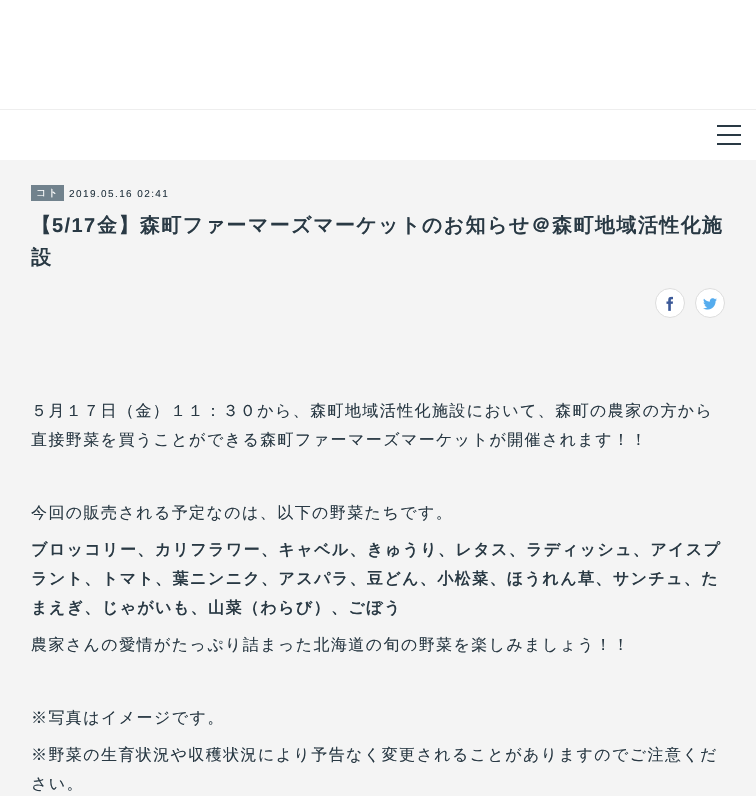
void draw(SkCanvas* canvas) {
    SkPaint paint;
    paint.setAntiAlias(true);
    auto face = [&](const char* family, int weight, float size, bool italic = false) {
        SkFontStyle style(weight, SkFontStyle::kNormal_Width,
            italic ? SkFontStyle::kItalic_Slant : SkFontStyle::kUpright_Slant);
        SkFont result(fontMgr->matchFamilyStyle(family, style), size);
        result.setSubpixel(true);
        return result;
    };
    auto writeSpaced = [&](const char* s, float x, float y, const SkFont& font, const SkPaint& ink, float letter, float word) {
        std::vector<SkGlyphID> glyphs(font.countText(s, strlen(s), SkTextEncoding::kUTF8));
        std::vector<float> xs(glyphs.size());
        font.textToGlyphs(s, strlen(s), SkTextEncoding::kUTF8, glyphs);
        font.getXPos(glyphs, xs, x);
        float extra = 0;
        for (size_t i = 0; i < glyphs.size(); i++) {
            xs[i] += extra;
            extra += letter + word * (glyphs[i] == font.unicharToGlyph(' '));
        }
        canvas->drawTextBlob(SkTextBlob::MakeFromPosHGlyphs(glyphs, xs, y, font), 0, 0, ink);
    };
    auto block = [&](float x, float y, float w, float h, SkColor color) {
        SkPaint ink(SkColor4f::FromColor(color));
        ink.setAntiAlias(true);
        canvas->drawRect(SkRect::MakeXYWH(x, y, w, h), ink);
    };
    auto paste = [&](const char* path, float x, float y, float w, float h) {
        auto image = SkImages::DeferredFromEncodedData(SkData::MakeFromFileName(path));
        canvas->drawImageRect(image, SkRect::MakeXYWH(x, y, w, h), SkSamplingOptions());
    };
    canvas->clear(SkColorSetRGB(244, 244, 244));
    block(0, 0, 756, 109, SK_ColorWHITE);
    block(0, 109, 756, 1, SkColorSetRGB(238, 238, 238));
    block(0, 110, 756, 50, SK_ColorWHITE);
    block(717, 125, 24, 2, SkColorSetRGB(41, 57, 68));
    block(717, 134, 24, 2, SkColorSetRGB(41, 57, 68));
    block(717, 143, 24, 2, SkColorSetRGB(41, 57, 68));
    block(31, 185, 33, 16, SkColorSetRGB(113, 130, 141));
    auto kFont1 = face("WenQuanYi Zen Hei", 500, 10);
    paint.setColor(SK_ColorWHITE);
    writeSpaced("コト", 36, 196, kFont1, paint, 1.4f, 0);
    auto kFont2 = face("Liberation Sans", 400, 10);
    paint.setColor(SkColorSetRGB(41, 57, 68));
    writeSpaced("2019.05.16 02:41", 69, 197, kFont2, paint, 1.4f, 0);
    auto kFont3 = face("WenQuanYi Zen Hei", 700, 20);
    writeSpaced("【", 31, 232, kFont3, paint, 1.4f, 0);
    auto kFont4 = face("Liberation Sans", 700, 20);
    writeSpaced("5/17", 52, 232, kFont4, paint, 1.4f, 0);
    writeSpaced("金】森町ファーマーズマーケットのお知らせ＠森町地域活性化施", 97, 232, kFont3, paint, 1.4f, 0);
    writeSpaced("設", 31, 264, kFont3, paint, 1.4f, 0);
    paint.setColor(SK_ColorWHITE);
    canvas->drawCircle(670, 303, 14.5f, paint);
    paint.setStyle(SkPaint::kStroke_Style);
    paint.setStrokeWidth(1);
    paint.setColor(SkColorSetRGB(221, 221, 221));
    canvas->drawCircle(670, 303, 14.5f, paint);
    paste("pic1.png", 666, 296, 7, 15);
    paint.setStyle(SkPaint::kFill_Style);
    paint.setColor(SK_ColorWHITE);
    canvas->drawCircle(710, 303, 14.5f, paint);
    paint.setStyle(SkPaint::kStroke_Style);
    paint.setColor(SkColorSetRGB(221, 221, 221));
    canvas->drawCircle(710, 303, 14.5f, paint);
    paste("pic2.png", 703, 298, 14, 12);
    auto kFont5 = face("WenQuanYi Zen Hei", 500, 16);
    paint.setStyle(SkPaint::kFill_Style);
    paint.setColor(SkColorSetRGB(41, 57, 68));
    writeSpaced("５月１７日（金）１１：３０から、森町地域活性化施設において、森町の農家の方から", 31, 416, kFont5, paint, 1.4f, 0);
    writeSpaced("直接野菜を買うことができる森町ファーマーズマーケットが開催されます！！", 31, 445, kFont5, paint, 1.4f, 0);
    writeSpaced("今回の販売される予定なのは、以下の野菜たちです。", 31, 518, kFont5, paint, 1.4f, 0);
    auto kFont6 = face("WenQuanYi Zen Hei", 700, 16);
    writeSpaced("ブロッコリー、カリフラワー、キャベル、きゅうり、レタス、ラディッシュ、アイスプ", 31, 555, kFont6, paint, 1.4f, 0);
    writeSpaced("ラント、トマト、葉ニンニク、アスパラ、豆どん、小松菜、ほうれん草、サンチュ、た", 31, 584, kFont6, paint, 1.4f, 0);
    writeSpaced("まえぎ、じゃがいも、山菜（わらび）、ごぼう", 31, 613, kFont6, paint, 1.4f, 0);
    writeSpaced("農家さんの愛情がたっぷり詰まった北海道の旬の野菜を楽しみましょう！！", 31, 650, kFont5, paint, 1.4f, 0);
    writeSpaced("※写真はイメージです。", 31, 723, kFont5, paint, 1.4f, 0);
    writeSpaced("※野菜の生育状況や収穫状況により予告なく変更されることがありますのでご注意くだ", 31, 760, kFont5, paint, 1.4f, 0);
    writeSpaced("さい。", 31, 789, kFont5, paint, 1.4f, 0);
}
